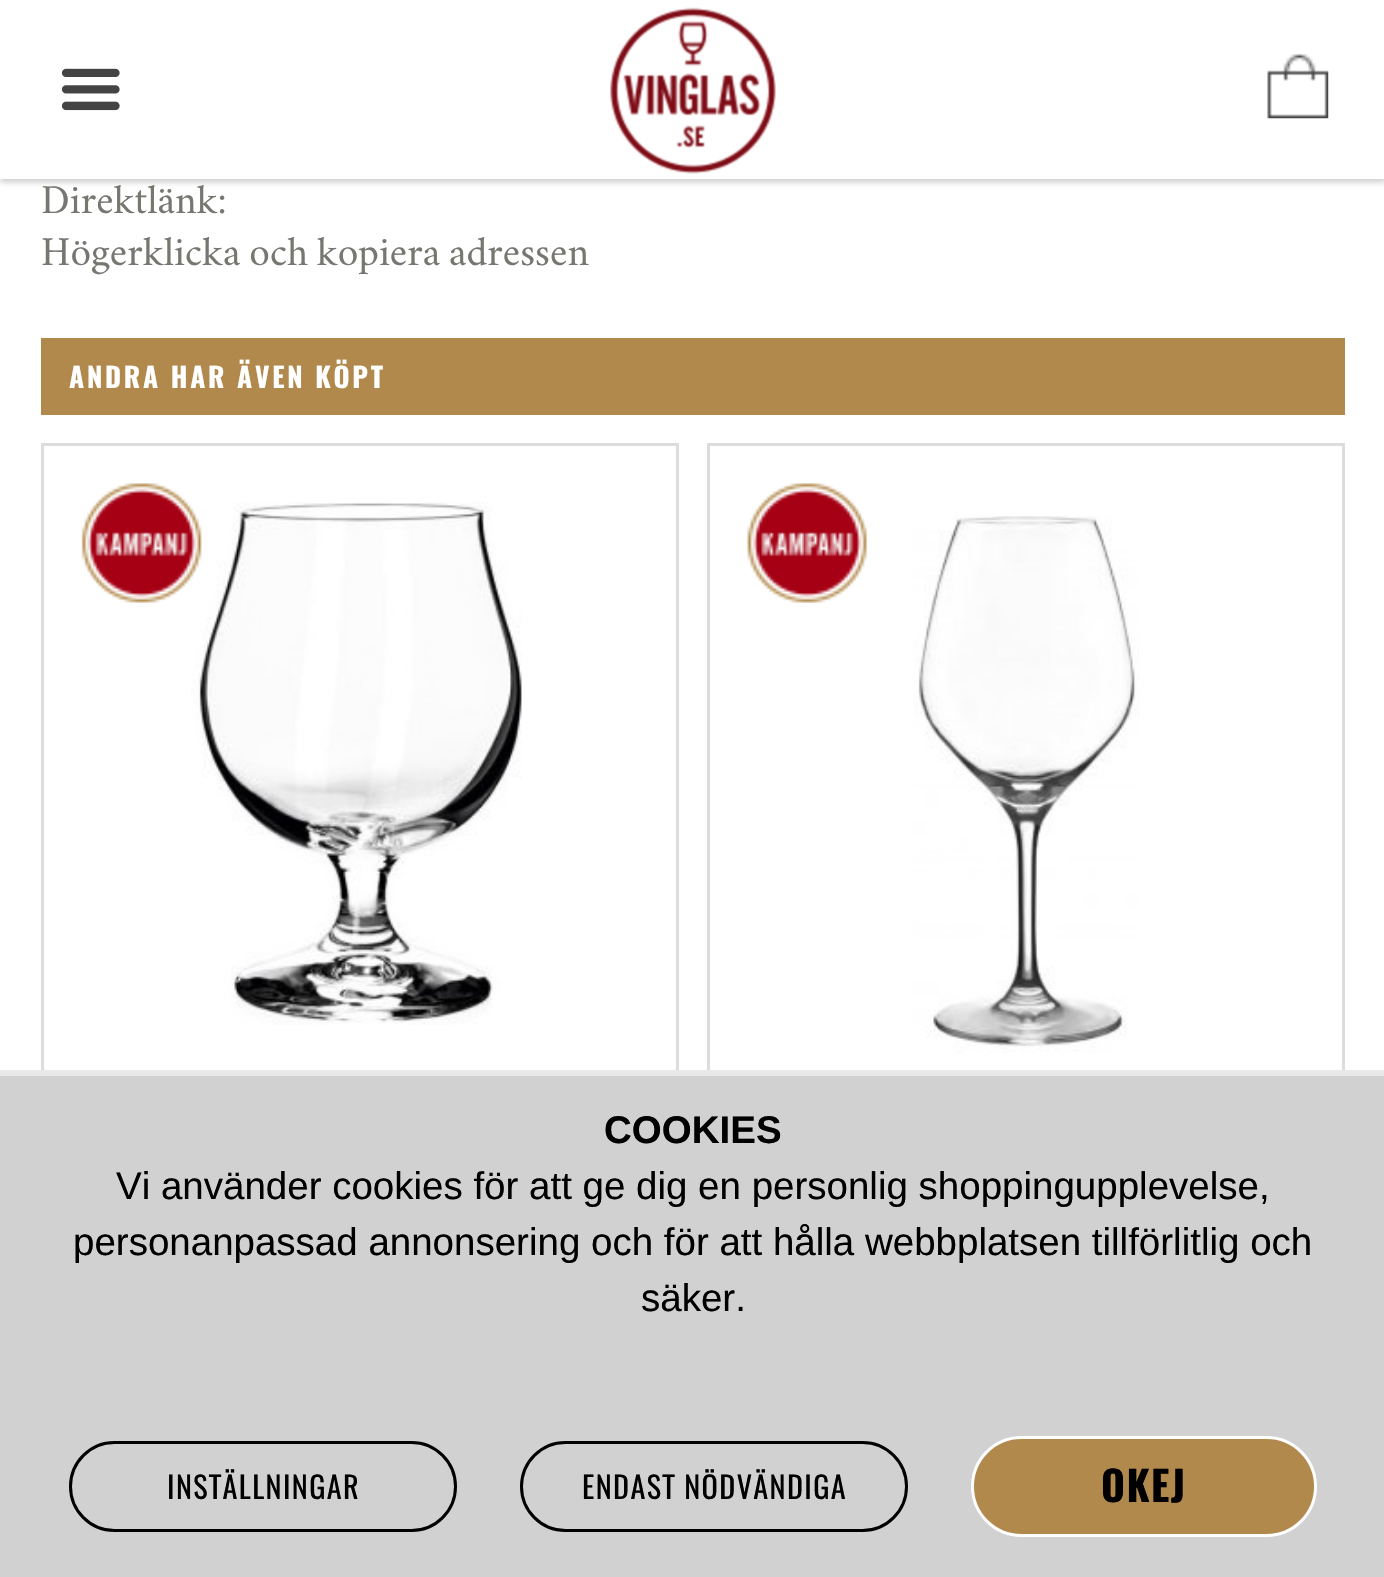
void draw(SkCanvas* canvas) {
    SkPaint paint;
    paint.setAntiAlias(true);
    auto face = [&](const char* family, int weight, float size, bool italic = false) {
        SkFontStyle style(weight, SkFontStyle::kNormal_Width,
            italic ? SkFontStyle::kItalic_Slant : SkFontStyle::kUpright_Slant);
        SkFont result(fontMgr->matchFamilyStyle(family, style), size);
        result.setSubpixel(true);
        return result;
    };
    auto write = [&](const char* s, float x, float y, const SkFont& font, SkColor color) {
        SkPaint ink(SkColor4f::FromColor(color));
        ink.setAntiAlias(true);
        canvas->drawString(s, x, y, font, ink);
    };
    auto writeSpaced = [&](const char* s, float x, float y, const SkFont& font, const SkPaint& ink, float letter, float word) {
        std::vector<SkGlyphID> glyphs(font.countText(s, strlen(s), SkTextEncoding::kUTF8));
        std::vector<float> xs(glyphs.size());
        font.textToGlyphs(s, strlen(s), SkTextEncoding::kUTF8, glyphs);
        font.getXPos(glyphs, xs, x);
        float extra = 0;
        for (size_t i = 0; i < glyphs.size(); i++) {
            xs[i] += extra;
            extra += letter + word * (glyphs[i] == font.unicharToGlyph(' '));
        }
        canvas->drawTextBlob(SkTextBlob::MakeFromPosHGlyphs(glyphs, xs, y, font), 0, 0, ink);
    };
    auto block = [&](float x, float y, float w, float h, SkColor color) {
        SkPaint ink(SkColor4f::FromColor(color));
        ink.setAntiAlias(true);
        canvas->drawRect(SkRect::MakeXYWH(x, y, w, h), ink);
    };
    auto paste = [&](const char* path, float x, float y, float w, float h) {
        auto image = SkImages::DeferredFromEncodedData(SkData::MakeFromFileName(path));
        canvas->drawImageRect(image, SkRect::MakeXYWH(x, y, w, h), SkSamplingOptions());
    };
    canvas->clear(SK_ColorWHITE);
    paint.setColor(SkColorSetARGB(51, 0, 0, 0));
    paint.setMaskFilter(SkMaskFilter::MakeBlur(kNormal_SkBlurStyle, 3));
    canvas->drawRect(SkRect::MakeXYWH(0, 3, 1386, 179), paint);
    paint.setMaskFilter(nullptr);
    block(0, 0, 1384, 179, SK_ColorWHITE);
    paste("pic1.png", 61, 68, 59, 43);
    paste("pic2.png", 610, 7, 166, 167);
    paste("pic3.png", 1267, 54, 62, 65);
    auto kFont1 = face("Crimson Text", 400, 35.75f);
    write("Direktlänk:", 41, 213, kFont1, SkColorSetRGB(119, 119, 114));
    write("Högerklicka och kopiera adressen", 41, 265, kFont1, SkColorSetRGB(119, 119, 114));
    block(41, 338, 1304, 77, SkColorSetRGB(177, 137, 76));
    auto kFont2 = face("Oswald", 700, 27.5f);
    paint.setColor(SK_ColorWHITE);
    writeSpaced("ANDRA HAR ÄVEN KÖPT", 69, 388, kFont2, paint, 2.75f, 0);
    paint.setStyle(SkPaint::kStroke_Style);
    paint.setStrokeWidth(3);
    paint.setColor(SkColorSetRGB(220, 220, 220));
    canvas->drawRect(SkRect::MakeXYWH(42.5f, 444.5f, 635, 1067), paint);
    paste("pic5.png", 191, 502, 331, 523);
    paste("pic4.png", 81, 483, 121, 120);
    canvas->drawRect(SkRect::MakeXYWH(708.5f, 444.5f, 635, 1067), paint);
    paste("pic6.png", 747, 483, 121, 120);
    paste("pic7.png", 913, 516, 226, 537);
    block(0, 1076, 1384, 501, SkColorSetRGB(209, 209, 209));
    block(0, 1070, 1384, 6, SkColorSetRGB(233, 233, 233));
    auto kFont3 = face("Liberation Sans", 700, 38.5f);
    write("COOKIES", 604, 1143, kFont3, SK_ColorBLACK);
    auto kFont4 = face("Liberation Sans", 400, 38.5f);
    write("Vi använder cookies för att ge dig en personlig shoppingupplevelse,", 116, 1199, kFont4, SK_ColorBLACK);
    write("personanpassad annonsering och för att hålla webbplatsen tillförlitlig och", 73, 1255, kFont4, SK_ColorBLACK);
    write("säker.", 641, 1311, kFont4, SK_ColorBLACK);
    paint.setColor(SK_ColorBLACK);
    canvas->drawRoundRect(SkRect::MakeXYWH(70.5f, 1442.5f, 385, 88), 44, 44, paint);
    auto kFont5 = face("Oswald", 400, 30.25f);
    paint.setStyle(SkPaint::kFill_Style);
    writeSpaced("INSTÄLLNINGAR", 167, 1499, kFont5, paint, 1.4f, 0);
    paint.setStyle(SkPaint::kStroke_Style);
    canvas->drawRoundRect(SkRect::MakeXYWH(521.5f, 1442.5f, 385, 88), 44, 44, paint);
    paint.setStyle(SkPaint::kFill_Style);
    writeSpaced("ENDAST NÖDVÄNDIGA", 582, 1499, kFont5, paint, 1.4f, 0);
    paint.setColor(SkColorSetRGB(177, 137, 76));
    canvas->drawRoundRect(SkRect::MakeXYWH(972.5f, 1437.5f, 343, 98), 49, 49, paint);
    paint.setStyle(SkPaint::kStroke_Style);
    paint.setColor(SK_ColorWHITE);
    canvas->drawRoundRect(SkRect::MakeXYWH(972.5f, 1437.5f, 343, 98), 49, 49, paint);
    auto kFont6 = face("Oswald", 700, 41);
    paint.setStyle(SkPaint::kFill_Style);
    paint.setColor(SK_ColorBLACK);
    writeSpaced("OKEJ", 1101, 1502, kFont6, paint, 1.4f, 0);
}
